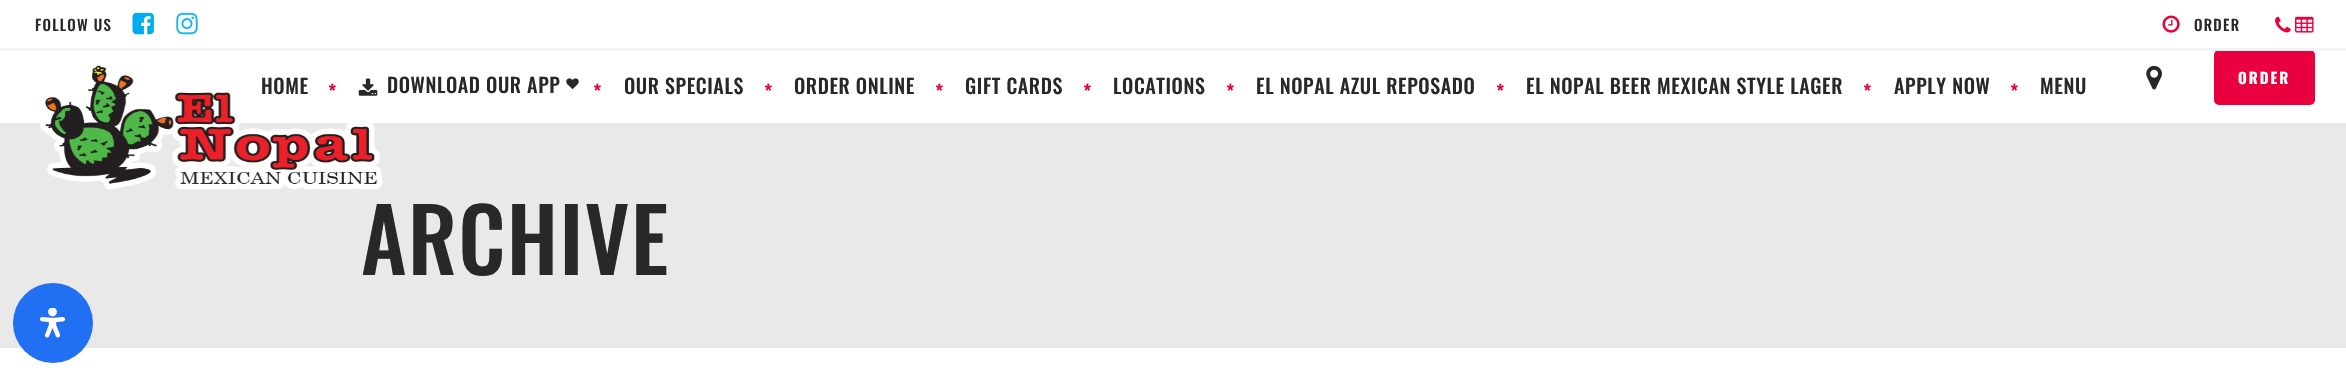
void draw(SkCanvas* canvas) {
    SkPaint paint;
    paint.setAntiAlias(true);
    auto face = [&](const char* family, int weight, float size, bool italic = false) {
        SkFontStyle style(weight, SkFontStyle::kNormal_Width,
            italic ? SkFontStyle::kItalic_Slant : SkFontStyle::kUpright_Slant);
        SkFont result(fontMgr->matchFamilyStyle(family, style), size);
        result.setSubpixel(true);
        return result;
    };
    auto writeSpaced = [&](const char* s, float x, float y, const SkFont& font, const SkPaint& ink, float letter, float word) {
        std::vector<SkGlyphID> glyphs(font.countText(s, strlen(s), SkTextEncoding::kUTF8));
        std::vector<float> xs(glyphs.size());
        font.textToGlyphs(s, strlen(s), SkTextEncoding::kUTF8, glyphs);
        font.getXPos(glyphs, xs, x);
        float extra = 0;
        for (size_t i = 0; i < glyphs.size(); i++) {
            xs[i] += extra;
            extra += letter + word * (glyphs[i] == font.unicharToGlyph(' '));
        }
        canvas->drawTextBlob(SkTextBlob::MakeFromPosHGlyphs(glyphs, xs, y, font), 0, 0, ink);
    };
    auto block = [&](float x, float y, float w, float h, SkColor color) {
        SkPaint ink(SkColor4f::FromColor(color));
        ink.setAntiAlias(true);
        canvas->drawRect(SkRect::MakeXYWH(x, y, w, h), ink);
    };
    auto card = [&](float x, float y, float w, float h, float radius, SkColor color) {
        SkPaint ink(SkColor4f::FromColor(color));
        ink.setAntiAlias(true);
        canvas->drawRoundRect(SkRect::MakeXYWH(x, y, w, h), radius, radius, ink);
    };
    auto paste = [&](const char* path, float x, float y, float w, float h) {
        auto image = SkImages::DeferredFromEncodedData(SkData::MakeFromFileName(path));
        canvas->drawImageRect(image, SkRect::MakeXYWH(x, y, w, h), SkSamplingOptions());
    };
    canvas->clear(SK_ColorWHITE);
    card(2214, 50, 101, 55, 5, SkColorSetRGB(233, 0, 63));
    block(0, 48, 2346, 3, SkColorSetRGB(244, 244, 244));
    auto kFont1 = face("Oswald", 500, 15);
    paint.setColor(SkColorSetRGB(40, 40, 40));
    writeSpaced("FOLLOW US", 35, 31, kFont1, paint, 1.25f, 0);
    paste("pic1.png", 132, 12, 22, 23);
    paste("pic2.png", 176, 12, 22, 23);
    paste("pic3.png", 2162, 15, 18, 18);
    writeSpaced("ORDER", 2194, 31, kFont1, paint, 1.25f, 0);
    paste("pic4.png", 2275, 16, 16, 17);
    paste("pic5.png", 2295, 16, 19, 17);
    auto kFont2 = face("Oswald", 500, 20);
    writeSpaced("HOME", 261, 94, kFont2, paint, 0.6f, 0);
    paint.setColor(SkColorSetRGB(233, 0, 63));
    writeSpaced("*", 328, 100, kFont2, paint, 0.6f, 0);
    paste("pic7.png", 358, 78, 20, 18);
    block(0, 123, 2346, 225, SkColorSetRGB(233, 233, 233));
    paste("pic6.png", 40, 65, 343, 125);
    paint.setColor(SkColorSetRGB(40, 40, 40));
    writeSpaced("DOWNLOAD OUR APP", 387, 93, kFont2, paint, 0.6f, 0);
    paste("pic8.png", 566, 78, 13, 11);
    paint.setColor(SkColorSetRGB(233, 0, 63));
    writeSpaced("*", 593, 100, kFont2, paint, 0.6f, 0);
    paint.setColor(SkColorSetRGB(40, 40, 40));
    writeSpaced("OUR SPECIALS", 624, 94, kFont2, paint, 0.6f, 0);
    paint.setColor(SkColorSetRGB(233, 0, 63));
    writeSpaced("*", 764, 100, kFont2, paint, 0.6f, 0);
    paint.setColor(SkColorSetRGB(40, 40, 40));
    writeSpaced("ORDER ONLINE", 794, 94, kFont2, paint, 0.6f, 0);
    paint.setColor(SkColorSetRGB(233, 0, 63));
    writeSpaced("*", 935, 100, kFont2, paint, 0.6f, 0);
    paint.setColor(SkColorSetRGB(40, 40, 40));
    writeSpaced("GIFT CARDS", 965, 94, kFont2, paint, 0.6f, 0);
    paint.setColor(SkColorSetRGB(233, 0, 63));
    writeSpaced("*", 1083, 100, kFont2, paint, 0.6f, 0);
    paint.setColor(SkColorSetRGB(40, 40, 40));
    writeSpaced("LOCATIONS", 1113, 94, kFont2, paint, 0.6f, 0);
    paint.setColor(SkColorSetRGB(233, 0, 63));
    writeSpaced("*", 1226, 100, kFont2, paint, 0.6f, 0);
    paint.setColor(SkColorSetRGB(40, 40, 40));
    writeSpaced("EL NOPAL AZUL REPOSADO", 1256, 94, kFont2, paint, 0.6f, 0);
    paint.setColor(SkColorSetRGB(233, 0, 63));
    writeSpaced("*", 1496, 100, kFont2, paint, 0.6f, 0);
    paint.setColor(SkColorSetRGB(40, 40, 40));
    writeSpaced("EL NOPAL BEER MEXICAN STYLE LAGER", 1526, 94, kFont2, paint, 0.6f, 0);
    paint.setColor(SkColorSetRGB(233, 0, 63));
    writeSpaced("*", 1863, 100, kFont2, paint, 0.6f, 0);
    paint.setColor(SkColorSetRGB(40, 40, 40));
    writeSpaced("APPLY NOW", 1894, 94, kFont2, paint, 0.6f, 0);
    paint.setColor(SkColorSetRGB(233, 0, 63));
    writeSpaced("*", 2010, 100, kFont2, paint, 0.6f, 0);
    paint.setColor(SkColorSetRGB(40, 40, 40));
    writeSpaced("MENU", 2040, 94, kFont2, paint, 0.6f, 0);
    paste("pic9.png", 2146, 65, 16, 25);
    auto kFont3 = face("Oswald", 700, 15);
    paint.setColor(SK_ColorWHITE);
    writeSpaced("ORDER", 2238, 84, kFont3, paint, 2, 0);
    auto kFont4 = face("Oswald", 500, 87.5f);
    paint.setColor(SkColorSetRGB(40, 40, 40));
    writeSpaced("ARCHIVE", 361, 275, kFont4, paint, 1.25f, 0);
    paint.setColor(SkColorSetRGB(33, 111, 243));
    canvas->drawCircle(53, 323, 40, paint);
    paste("pic10.png", 40, 308, 25, 30);
}
